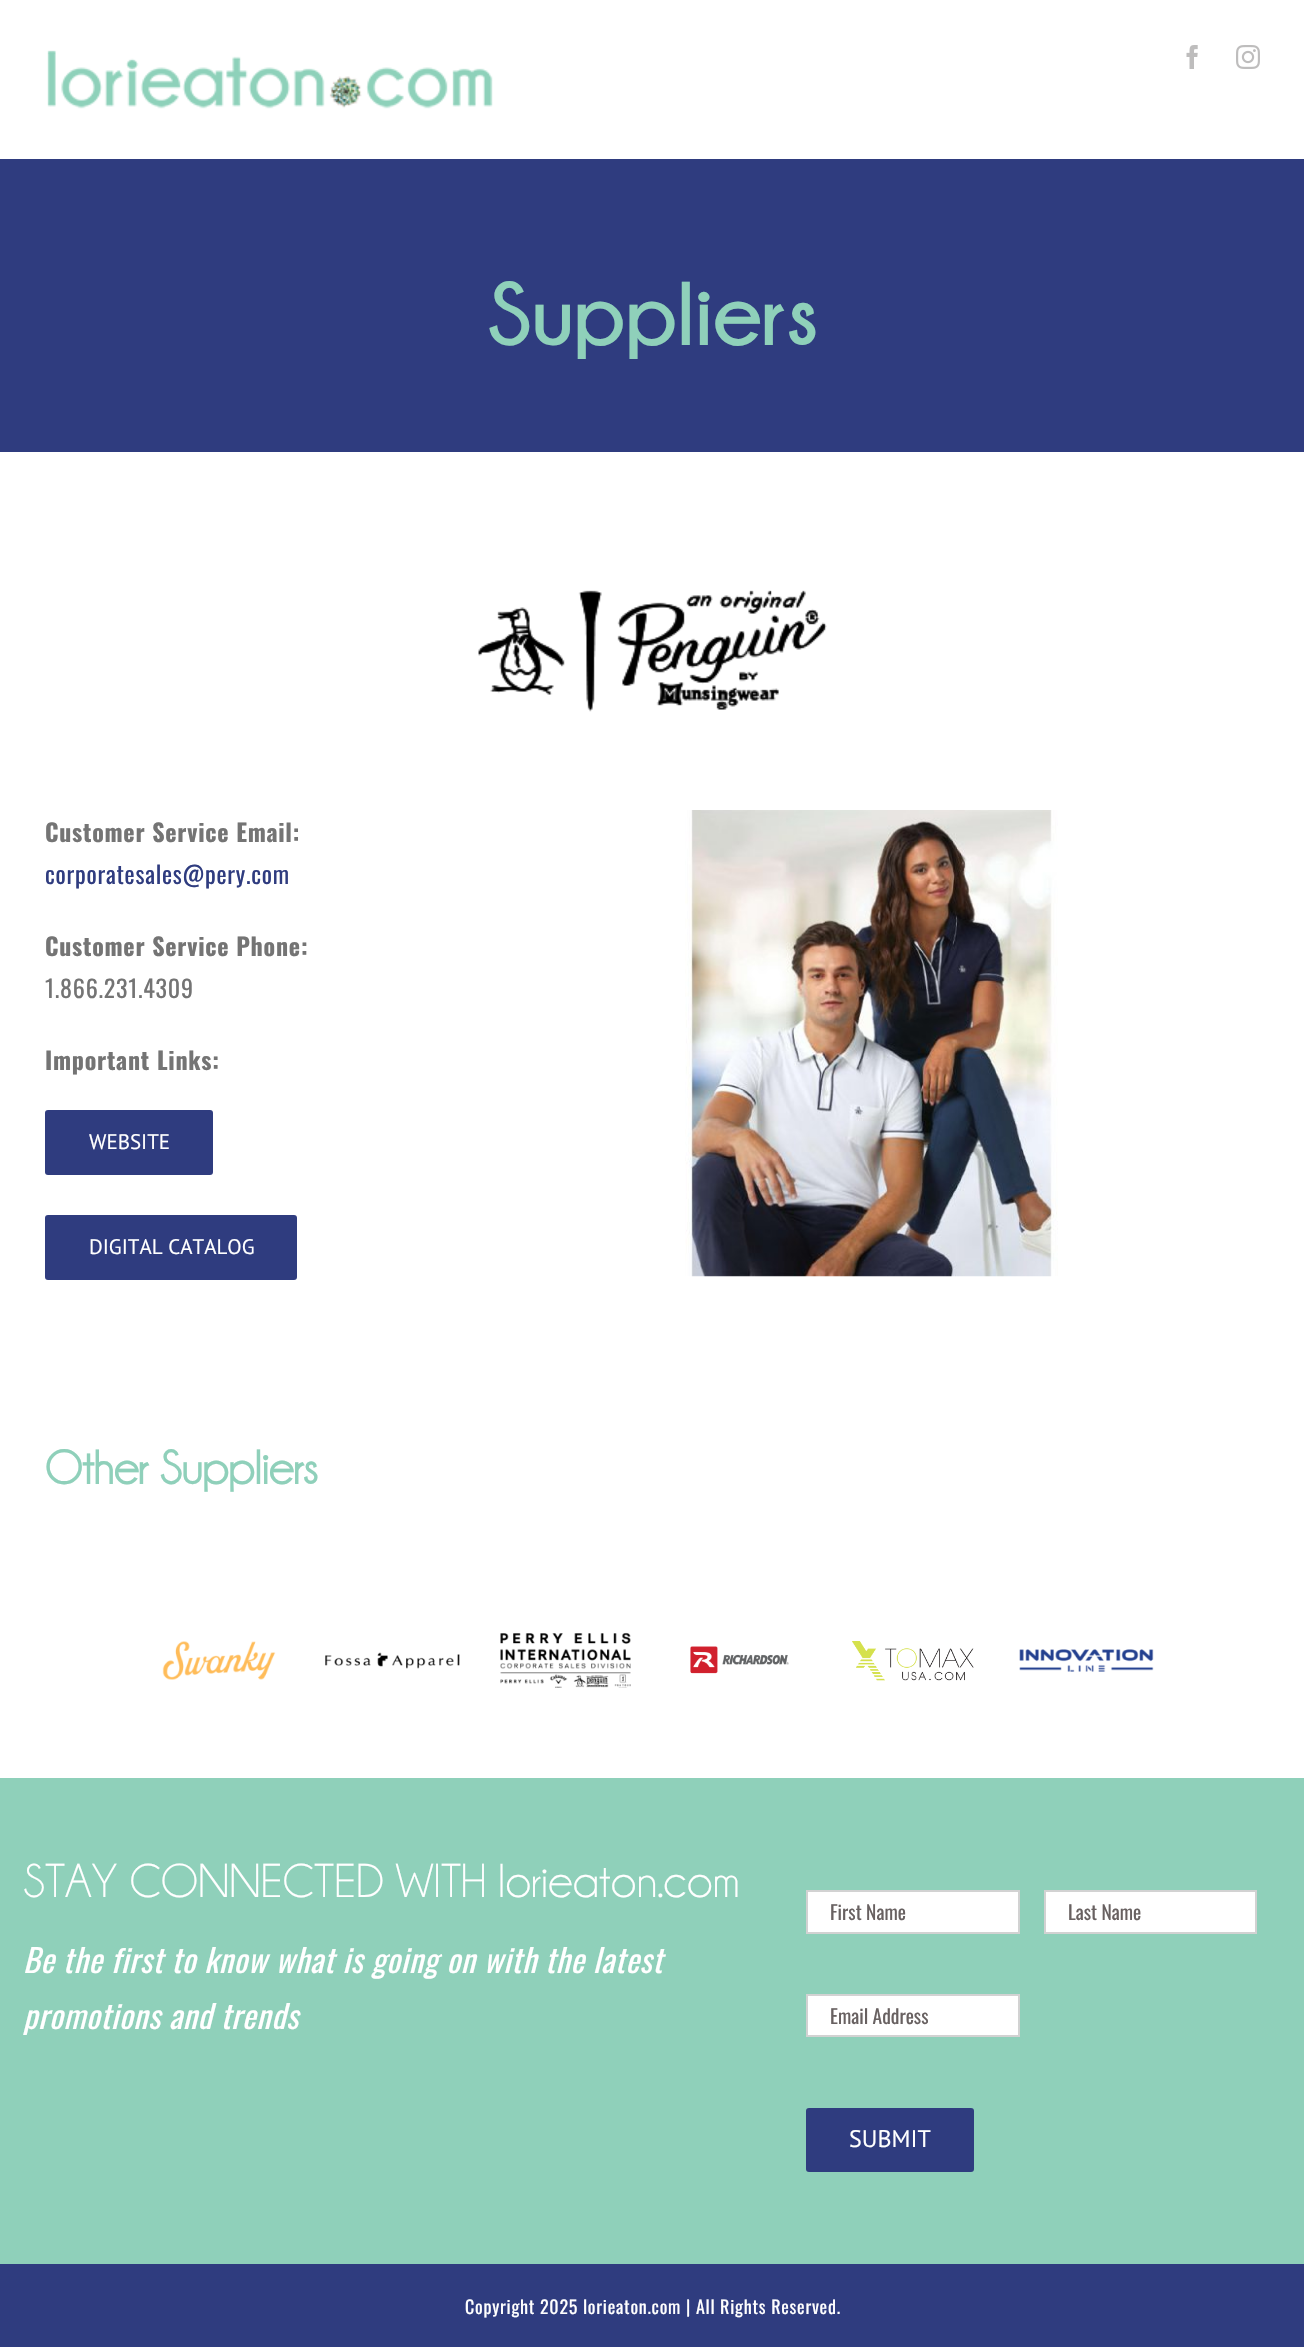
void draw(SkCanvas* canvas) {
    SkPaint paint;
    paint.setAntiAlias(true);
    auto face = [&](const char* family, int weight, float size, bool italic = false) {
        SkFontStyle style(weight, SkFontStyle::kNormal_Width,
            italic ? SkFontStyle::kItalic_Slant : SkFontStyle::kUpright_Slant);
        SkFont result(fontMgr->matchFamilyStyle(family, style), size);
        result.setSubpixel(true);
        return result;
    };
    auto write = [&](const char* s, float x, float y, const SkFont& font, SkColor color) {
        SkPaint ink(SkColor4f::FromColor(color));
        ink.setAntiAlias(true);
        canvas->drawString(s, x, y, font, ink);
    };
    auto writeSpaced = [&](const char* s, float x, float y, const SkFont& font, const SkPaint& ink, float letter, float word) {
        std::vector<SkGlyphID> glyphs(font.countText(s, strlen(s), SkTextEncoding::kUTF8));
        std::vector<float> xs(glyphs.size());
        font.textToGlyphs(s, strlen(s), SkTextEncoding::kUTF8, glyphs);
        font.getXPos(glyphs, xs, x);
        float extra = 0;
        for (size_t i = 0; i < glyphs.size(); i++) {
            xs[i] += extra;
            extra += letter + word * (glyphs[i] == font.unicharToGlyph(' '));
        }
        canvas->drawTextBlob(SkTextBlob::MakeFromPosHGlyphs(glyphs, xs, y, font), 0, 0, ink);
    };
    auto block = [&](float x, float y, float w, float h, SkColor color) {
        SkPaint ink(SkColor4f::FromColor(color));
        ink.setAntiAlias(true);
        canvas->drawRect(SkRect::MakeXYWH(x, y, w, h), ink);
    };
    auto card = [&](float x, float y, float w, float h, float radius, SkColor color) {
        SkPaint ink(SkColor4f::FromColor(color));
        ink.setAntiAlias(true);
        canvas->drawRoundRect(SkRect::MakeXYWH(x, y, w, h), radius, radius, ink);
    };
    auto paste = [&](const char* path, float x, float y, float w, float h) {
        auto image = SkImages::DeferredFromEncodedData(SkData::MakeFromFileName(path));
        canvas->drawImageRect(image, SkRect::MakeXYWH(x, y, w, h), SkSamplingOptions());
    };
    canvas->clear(SK_ColorWHITE);
    paste("pic1.png", 47, 50, 446, 59);
    paste("pic2.png", 1186, 45, 12, 24);
    paste("pic3.png", 1236, 45, 24, 24);
    block(0, 159, 1304, 293, SkColorSetRGB(47, 60, 127));
    auto kFont1 = face("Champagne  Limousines", 700, 90);
    write("Suppliers", 487, 345, kFont1, SkColorSetRGB(143, 208, 186));
    paste("pic4.png", 478, 590, 349, 122);
    auto kFont2 = face("Oswald", 700, 24);
    paint.setColor(SkColorSetRGB(116, 116, 116));
    writeSpaced("Customer Service Email:", 45, 842, kFont2, paint, 0.75f, 0);
    auto kFont3 = face("Oswald", 400, 24);
    paint.setColor(SkColorSetRGB(47, 60, 127));
    writeSpaced("corporatesales@pery.com", 45, 884, kFont3, paint, 0.75f, 0);
    paint.setColor(SkColorSetRGB(116, 116, 116));
    writeSpaced("Customer Service Phone:", 45, 956, kFont2, paint, 0.75f, 0);
    writeSpaced("1.866.231.4309", 45, 998, kFont3, paint, 0.75f, 0);
    writeSpaced("Important Links:", 45, 1070, kFont2, paint, 0.75f, 0);
    card(45, 1110, 168, 65, 3, SkColorSetRGB(47, 60, 127));
    auto kFont4 = face("PT Sans", 400, 21);
    write("WEBSITE", 89, 1149, kFont4, SK_ColorWHITE);
    card(45, 1215, 252, 65, 3, SkColorSetRGB(47, 60, 127));
    write("DIGITAL CATALOG", 89, 1254, kFont4, SK_ColorWHITE);
    paste("pic5.png", 685, 810, 373, 467);
    auto kFont5 = face("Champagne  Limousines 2", 700, 48);
    write("Other Suppliers", 45, 1484, kFont5, SkColorSetRGB(143, 208, 186));
    paste("pic6.png", 162, 1641, 114, 39);
    paste("pic7.png", 325, 1652, 135, 17);
    paste("pic8.png", 500, 1632, 131, 56);
    paste("pic9.png", 690, 1646, 99, 28);
    paste("pic10.png", 852, 1641, 122, 40);
    paste("pic11.png", 1019, 1649, 135, 23);
    block(0, 1778, 1304, 486, SkColorSetRGB(143, 208, 186));
    auto kFont6 = face("Champagne  Limousines", 400, 48);
    write("STAY CONNECTED WITH lorieaton.com", 23, 1897, kFont6, SK_ColorWHITE);
    auto kFont7 = face("Oswald", 400, 32, true);
    paint.setColor(SK_ColorWHITE);
    writeSpaced("Be the first to know what is going on with the latest", 23, 1973, kFont7, paint, 0.75f, 0);
    writeSpaced("promotions and trends", 23, 2029, kFont7, paint, 0.75f, 0);
    canvas->drawRect(SkRect::MakeXYWH(807, 1891, 212, 42), paint);
    paint.setStyle(SkPaint::kStroke_Style);
    paint.setStrokeWidth(2);
    paint.setColor(SkColorSetRGB(210, 210, 210));
    canvas->drawRect(SkRect::MakeXYWH(807, 1891, 212, 42), paint);
    auto kFont8 = face("Oswald", 400, 19.5f);
    write("First Name", 830, 1920, kFont8, SkColorSetRGB(104, 97, 97));
    paint.setStyle(SkPaint::kFill_Style);
    paint.setColor(SK_ColorWHITE);
    canvas->drawRect(SkRect::MakeXYWH(1045, 1891, 211, 42), paint);
    paint.setStyle(SkPaint::kStroke_Style);
    paint.setColor(SkColorSetRGB(210, 210, 210));
    canvas->drawRect(SkRect::MakeXYWH(1045, 1891, 211, 42), paint);
    write("Last Name", 1068, 1920, kFont8, SkColorSetRGB(104, 97, 97));
    paint.setStyle(SkPaint::kFill_Style);
    paint.setColor(SK_ColorWHITE);
    canvas->drawRect(SkRect::MakeXYWH(807, 1995, 212, 41), paint);
    paint.setStyle(SkPaint::kStroke_Style);
    paint.setColor(SkColorSetRGB(210, 210, 210));
    canvas->drawRect(SkRect::MakeXYWH(807, 1995, 212, 41), paint);
    write("Email Address", 830, 2024, kFont8, SkColorSetRGB(104, 97, 97));
    card(806, 2108, 168, 64, 3, SkColorSetRGB(47, 60, 127));
    auto kFont9 = face("PT Sans", 400, 24);
    write("SUBMIT", 849, 2147, kFont9, SK_ColorWHITE);
    block(0, 2264, 1304, 83, SkColorSetRGB(47, 60, 127));
    auto kFont10 = face("Oswald", 400, 18);
    paint.setStyle(SkPaint::kFill_Style);
    paint.setColor(SK_ColorWHITE);
    writeSpaced("Copyright 2025 lorieaton.com | All Rights Reserved.", 465, 2314, kFont10, paint, 0.75f, 0);
}
